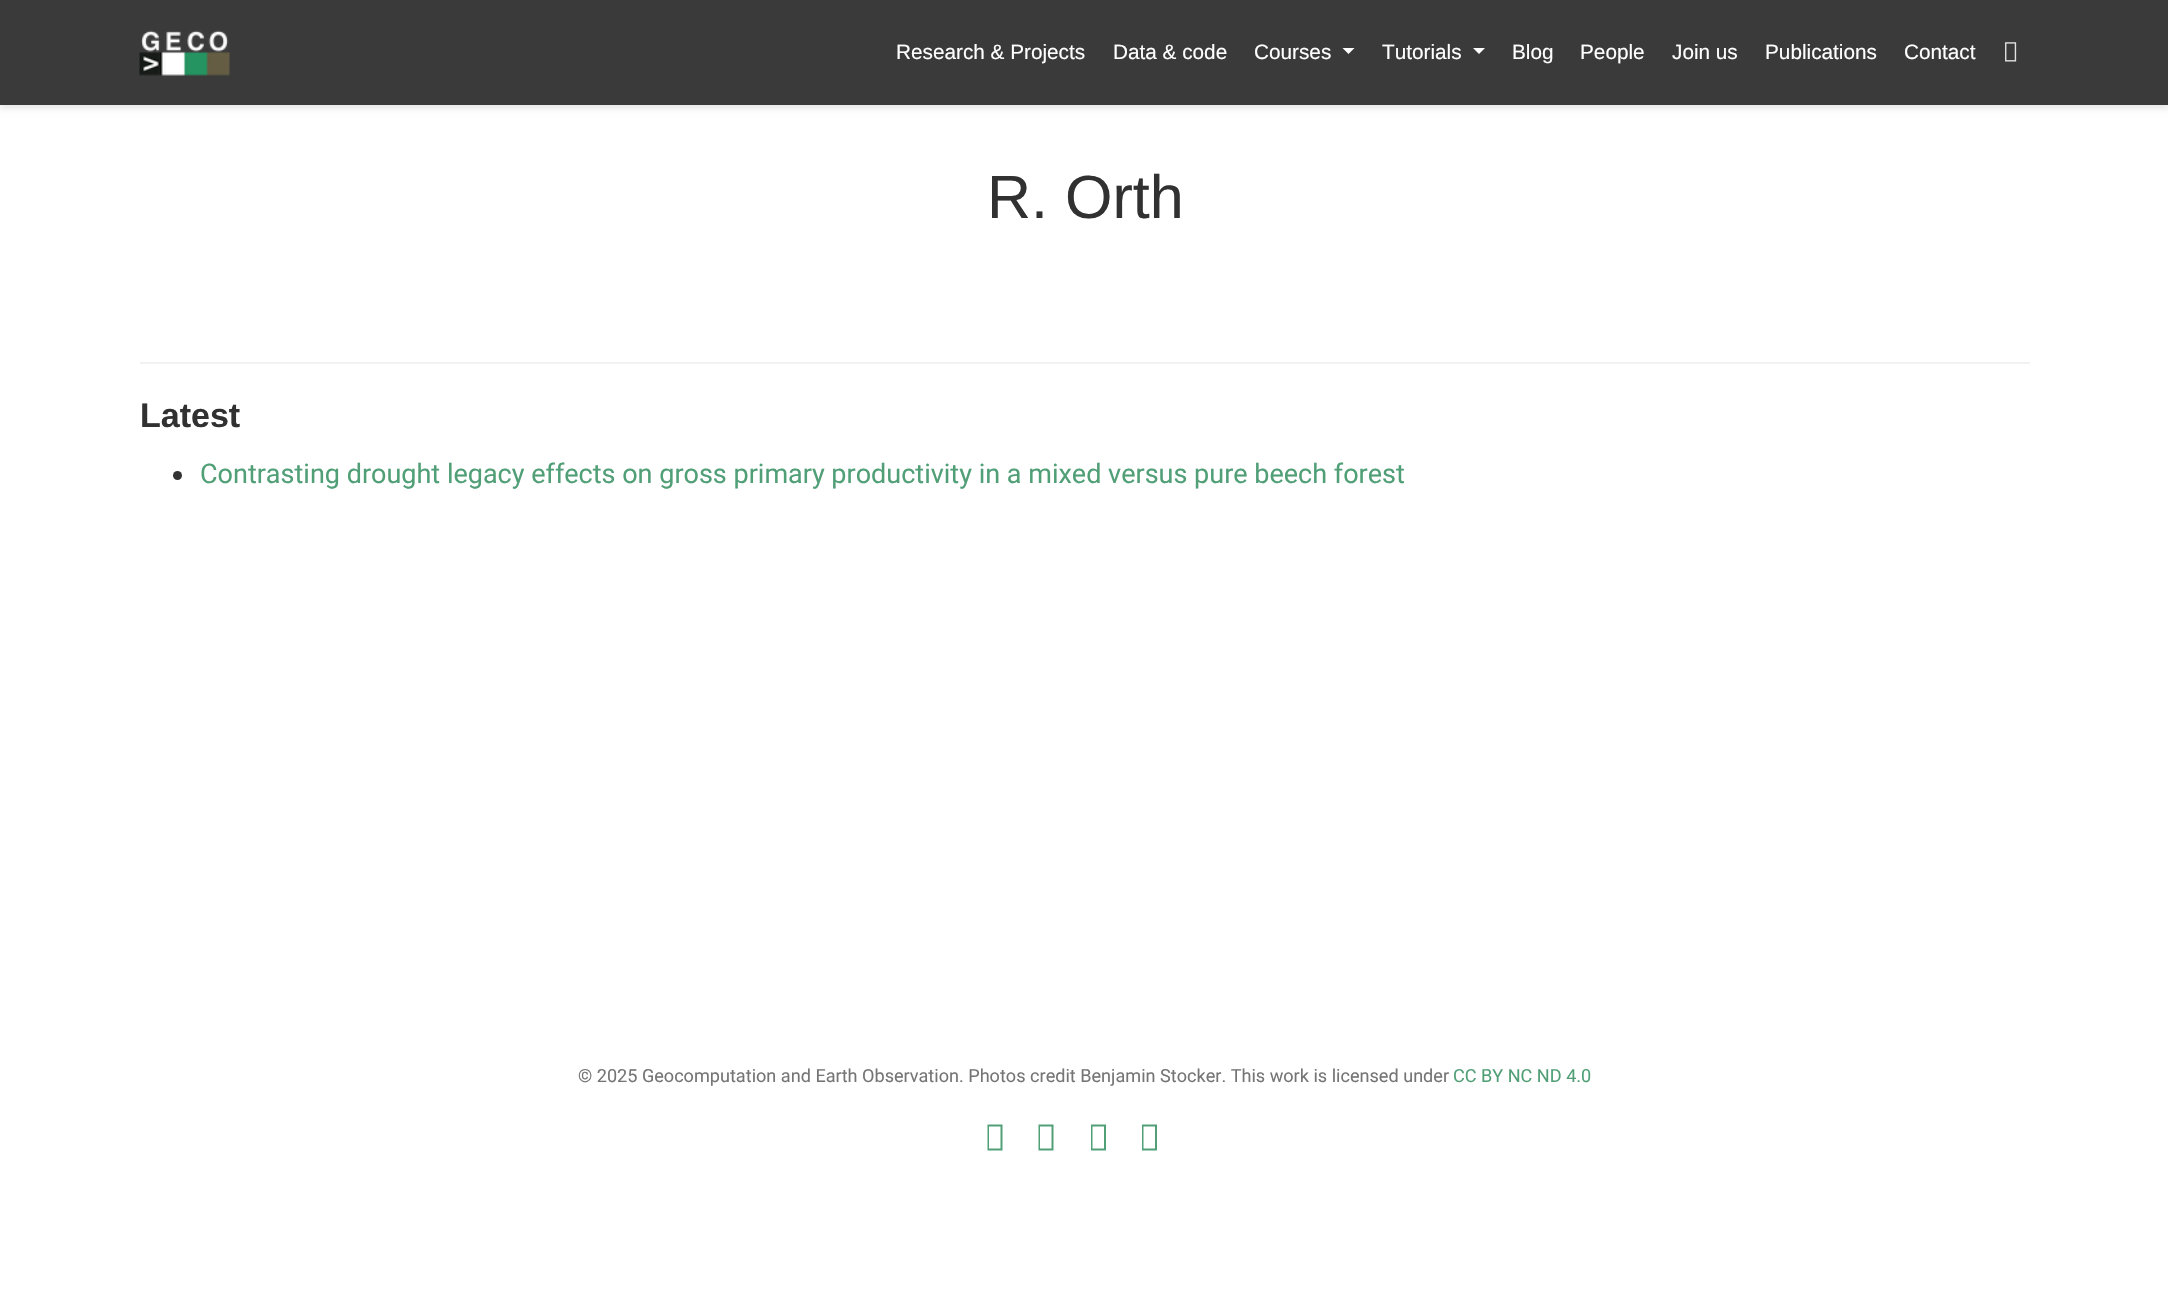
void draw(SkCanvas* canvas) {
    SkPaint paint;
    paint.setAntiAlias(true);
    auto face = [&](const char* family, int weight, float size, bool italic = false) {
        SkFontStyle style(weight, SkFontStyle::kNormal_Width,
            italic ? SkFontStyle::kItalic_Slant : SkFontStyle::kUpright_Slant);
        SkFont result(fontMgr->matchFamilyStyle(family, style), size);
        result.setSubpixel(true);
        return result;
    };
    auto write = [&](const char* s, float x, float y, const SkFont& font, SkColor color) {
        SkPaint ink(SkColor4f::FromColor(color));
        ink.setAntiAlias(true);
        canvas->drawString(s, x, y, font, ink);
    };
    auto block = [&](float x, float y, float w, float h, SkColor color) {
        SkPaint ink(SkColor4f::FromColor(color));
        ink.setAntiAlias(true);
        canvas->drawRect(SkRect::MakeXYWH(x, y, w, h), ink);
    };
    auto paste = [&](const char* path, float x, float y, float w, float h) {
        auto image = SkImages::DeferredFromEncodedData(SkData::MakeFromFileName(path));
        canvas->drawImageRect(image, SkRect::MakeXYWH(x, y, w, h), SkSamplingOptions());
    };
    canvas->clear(SK_ColorWHITE);
    paint.setColor(SkColorSetARGB(28, 0, 0, 0));
    paint.setMaskFilter(SkMaskFilter::MakeBlur(kNormal_SkBlurStyle, 3.5f));
    canvas->drawRect(SkRect::MakeXYWH(0, 3, 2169, 105), paint);
    paint.setMaskFilter(nullptr);
    block(0, 0, 2168, 105, SkColorSetRGB(58, 58, 58));
    paste("pic1.png", 139, 30, 91, 46);
    auto kFont1 = face("Liberation Sans", 400, 20.75f);
    write("Research & Projects", 896, 59, kFont1, SK_ColorWHITE);
    write("Data & code", 1113, 59, kFont1, SK_ColorWHITE);
    write("Courses", 1254, 59, kFont1, SK_ColorWHITE);
    paint.setColor(SK_ColorWHITE);
    canvas->drawPath(SkPathBuilder().moveTo(1342.5f, 48).lineTo(1354.5f, 48).lineTo(1348.5f, 54).close().detach(), paint);
    write("Tutorials", 1382, 59, kFont1, SK_ColorWHITE);
    canvas->drawPath(SkPathBuilder().moveTo(1473, 48).lineTo(1485, 48).lineTo(1479, 54).close().detach(), paint);
    write("Blog", 1512, 59, kFont1, SK_ColorWHITE);
    write("People", 1580, 59, kFont1, SK_ColorWHITE);
    write("Join us", 1672, 59, kFont1, SK_ColorWHITE);
    write("Publications", 1765, 59, kFont1, SK_ColorWHITE);
    write("Contact", 1904, 59, kFont1, SK_ColorWHITE);
    paste("pic2.png", 2005, 42, 12, 20);
    auto kFont2 = face("Liberation Sans", 400, 61);
    write("R. Orth", 987, 218, kFont2, SkColorSetRGB(49, 49, 49));
    block(140, 362, 1890, 2, SkColorSetRGB(242, 242, 242));
    auto kFont3 = face("Liberation Sans", 700, 34);
    write("Latest", 140, 427, kFont3, SkColorSetRGB(49, 49, 49));
    paint.setColor(SkColorSetRGB(51, 51, 51));
    canvas->drawCircle(177.5f, 475.5f, 4.5f, paint);
    auto kFont4 = face("Roboto", 400, 27);
    write("Contrasting drought legacy effects on gross primary productivity in a mixed versus pure beech forest", 200, 483, kFont4, SkColorSetRGB(81, 159, 119));
    auto kFont5 = face("Roboto", 400, 18.1f);
    write("© 2025 Geocomputation and Earth Observation. Photos credit Benjamin Stocker. This work is licensed under", 578, 1082, kFont5, SkColorSetRGB(117, 117, 117));
    write("CC BY NC ND 4.0", 1453, 1082, kFont5, SkColorSetRGB(81, 159, 119));
    paint.setColor(SkColorSetRGB(81, 159, 119));
    canvas->drawPath(SkPathBuilder().moveTo(987.5f, 1150.5f).lineTo(987.5f, 1124.5f).lineTo(1002.5f, 1124.5f).lineTo(1002.5f, 1150.5f).close().moveTo(989, 1148.5f).lineTo(1000.5f, 1148.5f).lineTo(1000.5f, 1126.5f).lineTo(989, 1126.5f).close().detach(), paint);
    canvas->drawPath(SkPathBuilder().moveTo(1038.5f, 1150.5f).lineTo(1038.5f, 1124.5f).lineTo(1053.5f, 1124.5f).lineTo(1053.5f, 1150.5f).close().moveTo(1040, 1148.5f).lineTo(1051.5f, 1148.5f).lineTo(1051.5f, 1126.5f).lineTo(1040, 1126.5f).close().detach(), paint);
    canvas->drawPath(SkPathBuilder().moveTo(1091, 1150.5f).lineTo(1091, 1124.5f).lineTo(1106, 1124.5f).lineTo(1106, 1150.5f).close().moveTo(1092.5f, 1148.5f).lineTo(1104, 1148.5f).lineTo(1104, 1126.5f).lineTo(1092.5f, 1126.5f).close().detach(), paint);
    canvas->drawPath(SkPathBuilder().moveTo(1142, 1150.5f).lineTo(1142, 1124.5f).lineTo(1157, 1124.5f).lineTo(1157, 1150.5f).close().moveTo(1143.5f, 1148.5f).lineTo(1155, 1148.5f).lineTo(1155, 1126.5f).lineTo(1143.5f, 1126.5f).close().detach(), paint);
}
